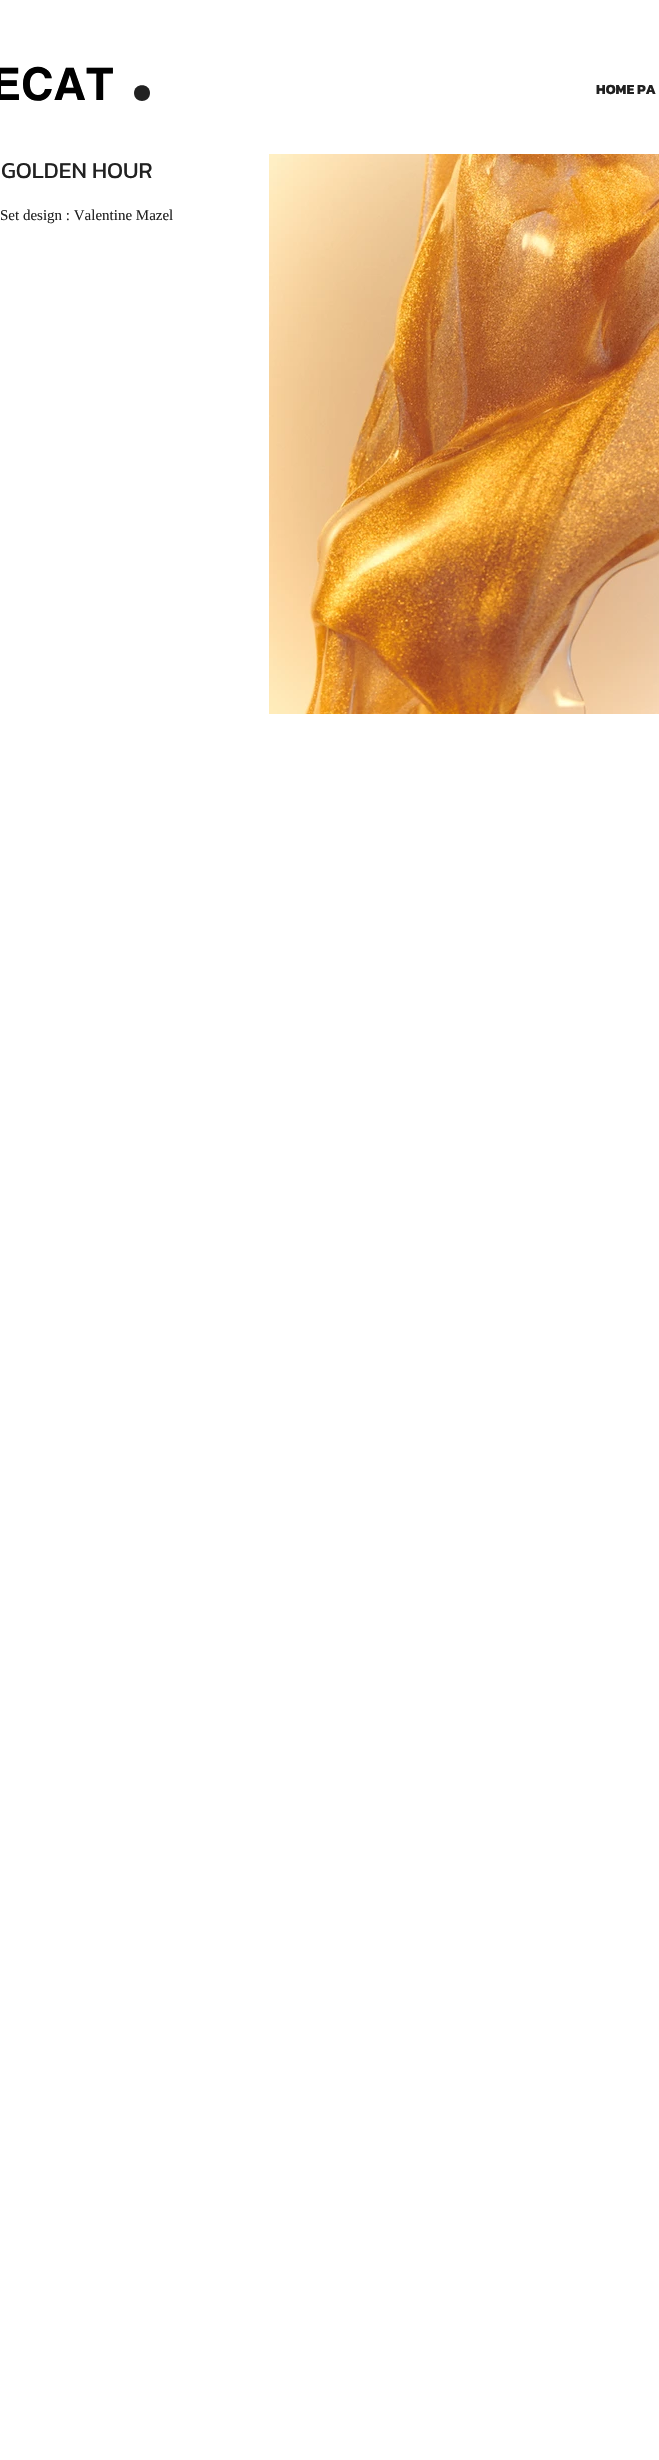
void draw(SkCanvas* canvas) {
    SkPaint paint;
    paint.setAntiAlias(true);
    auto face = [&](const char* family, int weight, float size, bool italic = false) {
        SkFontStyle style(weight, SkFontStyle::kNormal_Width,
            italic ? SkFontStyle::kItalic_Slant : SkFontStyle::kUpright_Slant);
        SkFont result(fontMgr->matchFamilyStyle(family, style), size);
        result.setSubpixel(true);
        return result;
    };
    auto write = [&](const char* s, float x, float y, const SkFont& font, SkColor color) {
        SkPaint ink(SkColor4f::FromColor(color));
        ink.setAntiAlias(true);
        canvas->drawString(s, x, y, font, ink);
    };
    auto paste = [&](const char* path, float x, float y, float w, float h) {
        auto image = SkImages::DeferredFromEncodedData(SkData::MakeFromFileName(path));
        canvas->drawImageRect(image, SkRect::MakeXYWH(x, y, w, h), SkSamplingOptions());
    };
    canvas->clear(SK_ColorWHITE);
    auto kFont1 = face("helvetica", 700, 45);
    write("ECAT", -9, 100, kFont1, SK_ColorBLACK);
    paint.setColor(SkColorSetRGB(33, 33, 33));
    canvas->drawPath(SkPathBuilder().moveTo(150, 93).cubicTo(150, 103.5f, 134, 103.5f, 134, 93).cubicTo(134, 82.5f, 150, 82.5f, 150, 93).close().detach(), paint);
    auto kFont2 = face("Kanit", 700, 14);
    write("HOME PA", 596, 94, kFont2, SkColorSetRGB(33, 33, 33));
    auto kFont3 = face("Kanit", 400, 23);
    write("GOLDEN HOUR", 1, 178, kFont3, SkColorSetRGB(33, 33, 33));
    paste("pic1.png", 269, 154, 390, 560);
    auto kFont4 = face("Liberation Serif", 400, 15);
    write("Set design : Valentine Mazel", 0, 220, kFont4, SkColorSetRGB(33, 33, 33));
}
